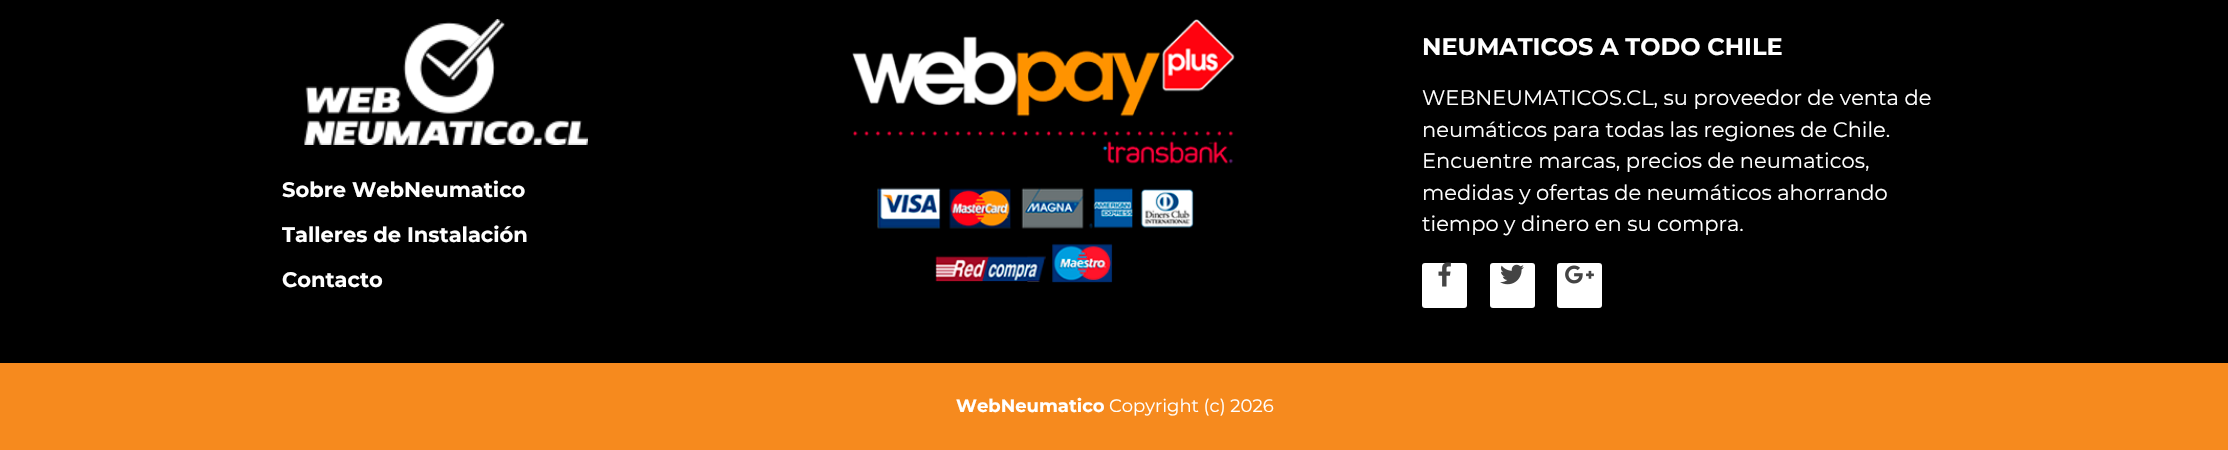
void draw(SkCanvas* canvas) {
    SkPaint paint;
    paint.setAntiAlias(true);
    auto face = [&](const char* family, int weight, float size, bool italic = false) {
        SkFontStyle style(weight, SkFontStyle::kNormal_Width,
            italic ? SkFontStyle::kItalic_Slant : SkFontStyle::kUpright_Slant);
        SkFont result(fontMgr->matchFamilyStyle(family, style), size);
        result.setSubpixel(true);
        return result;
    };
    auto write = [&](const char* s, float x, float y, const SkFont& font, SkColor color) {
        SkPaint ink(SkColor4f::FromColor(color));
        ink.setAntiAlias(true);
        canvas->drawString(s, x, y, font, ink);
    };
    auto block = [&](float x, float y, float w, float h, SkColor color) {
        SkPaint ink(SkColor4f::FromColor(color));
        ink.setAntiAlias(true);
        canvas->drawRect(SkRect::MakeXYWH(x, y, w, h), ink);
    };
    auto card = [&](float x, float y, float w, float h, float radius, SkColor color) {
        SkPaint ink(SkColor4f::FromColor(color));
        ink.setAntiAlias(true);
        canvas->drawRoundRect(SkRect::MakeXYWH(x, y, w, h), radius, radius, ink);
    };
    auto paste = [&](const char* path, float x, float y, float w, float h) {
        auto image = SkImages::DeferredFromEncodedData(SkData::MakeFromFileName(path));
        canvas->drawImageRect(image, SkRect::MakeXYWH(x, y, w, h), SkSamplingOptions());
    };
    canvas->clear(SK_ColorBLACK);
    paste("pic1.png", 304, 19, 284, 126);
    auto kFont1 = face("Montserrat", 700, 21);
    write("Sobre WebNeumatico", 282, 197, kFont1, SK_ColorWHITE);
    write("Talleres de Instalación", 282, 242, kFont1, SK_ColorWHITE);
    write("Contacto", 282, 287, kFont1, SK_ColorWHITE);
    paste("pic2.png", 852, 19, 383, 264);
    auto kFont2 = face("Montserrat", 700, 24);
    write("NEUMATICOS A TODO CHILE", 1422, 55, kFont2, SK_ColorWHITE);
    auto kFont3 = face("Montserrat", 400, 21);
    write("WEBNEUMATICOS.CL, su proveedor de venta de", 1422, 105, kFont3, SK_ColorWHITE);
    write("neumáticos para todas las regiones de Chile.", 1422, 137, kFont3, SK_ColorWHITE);
    write("Encuentre marcas, precios de neumaticos,", 1422, 168, kFont3, SK_ColorWHITE);
    write("medidas y ofertas de neumáticos ahorrando", 1422, 200, kFont3, SK_ColorWHITE);
    write("tiempo y dinero en su compra.", 1422, 231, kFont3, SK_ColorWHITE);
    card(1422, 263, 45, 45, 3, SK_ColorWHITE);
    paste("pic3.png", 1438, 262, 13, 25);
    card(1490, 263, 45, 45, 3, SK_ColorWHITE);
    paste("pic4.png", 1500, 264, 24, 21);
    card(1557, 263, 45, 45, 3, SK_ColorWHITE);
    paste("pic5.png", 1565, 265, 29, 19);
    block(0, 363, 2228, 87, SkColorSetRGB(246, 138, 30));
    auto kFont4 = face("Montserrat", 700, 18);
    write("WebNeumatico", 956, 412, kFont4, SK_ColorWHITE);
    auto kFont5 = face("Montserrat", 400, 18);
    write("Copyright (c) 2026", 1109, 412, kFont5, SK_ColorWHITE);
}
